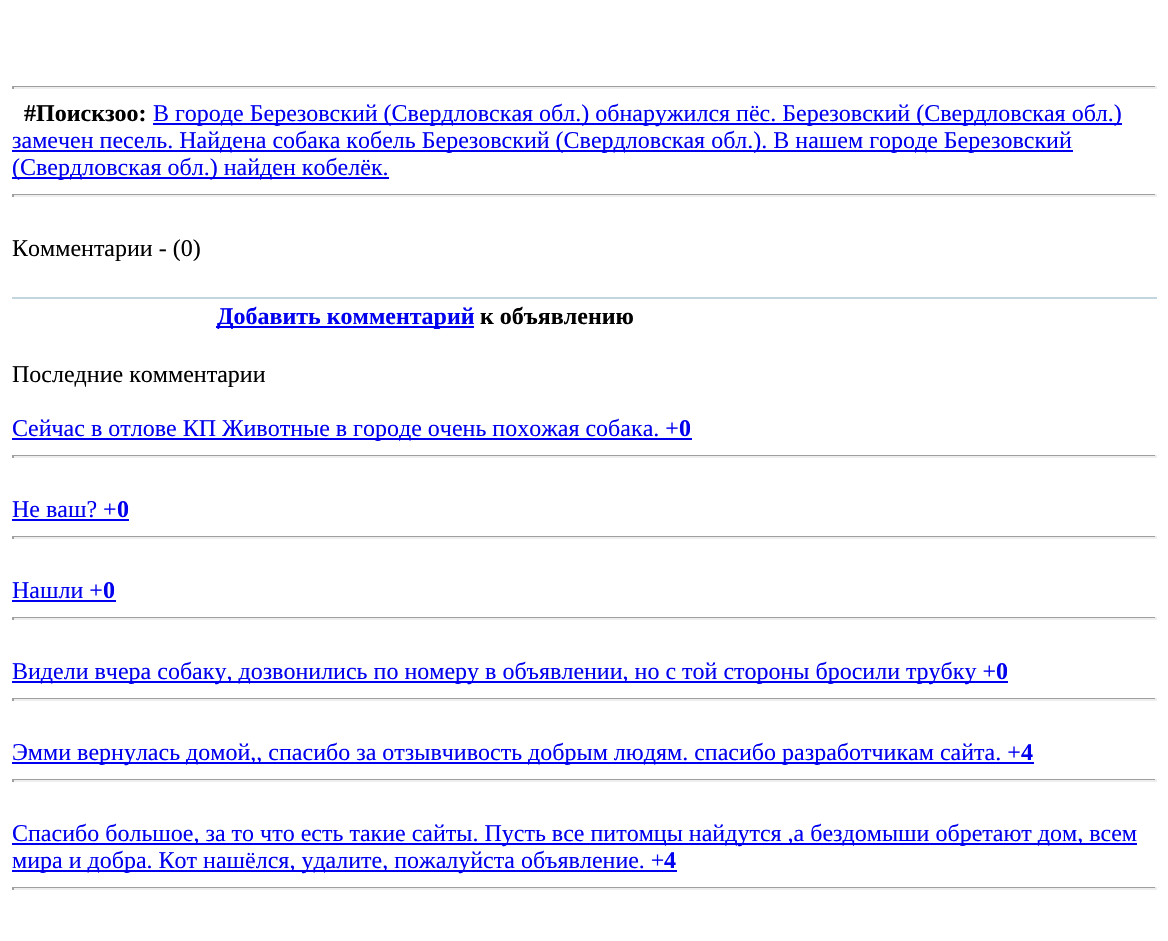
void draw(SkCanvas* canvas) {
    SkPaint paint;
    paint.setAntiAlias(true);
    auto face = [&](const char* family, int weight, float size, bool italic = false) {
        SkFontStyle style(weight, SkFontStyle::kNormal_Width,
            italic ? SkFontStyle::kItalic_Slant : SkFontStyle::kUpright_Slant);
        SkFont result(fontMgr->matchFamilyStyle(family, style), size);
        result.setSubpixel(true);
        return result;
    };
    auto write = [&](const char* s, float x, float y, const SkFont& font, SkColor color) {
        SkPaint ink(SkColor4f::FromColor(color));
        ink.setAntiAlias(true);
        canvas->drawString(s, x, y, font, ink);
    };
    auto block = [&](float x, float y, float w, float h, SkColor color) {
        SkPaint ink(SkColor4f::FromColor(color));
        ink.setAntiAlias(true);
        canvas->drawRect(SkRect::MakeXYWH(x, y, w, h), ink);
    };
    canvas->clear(SK_ColorWHITE);
    block(12, 86, 1145, 1, SkColorSetRGB(159, 159, 159));
    block(1155, 86, 2, 3, SkColorSetRGB(238, 238, 238));
    block(12, 87, 1145, 2, SkColorSetRGB(238, 238, 238));
    block(12, 86, 2, 3, SkColorSetRGB(159, 159, 159));
    auto kFont1 = face("Liberation Serif", 700, 24);
    write("#Поискзоо:", 24, 121, kFont1, SK_ColorBLACK);
    block(153, 123, 969, 2, SkColorSetRGB(0, 0, 238));
    auto kFont2 = face("Liberation Serif", 400, 24);
    write("В городе Березовский (Свердловская обл.) обнаружился пёс. Березовский (Свердловская обл.)", 153, 121, kFont2, SkColorSetRGB(0, 0, 238));
    block(12, 150, 1061, 2, SkColorSetRGB(0, 0, 238));
    write("замечен песель. Найдена собака кобель Березовский (Свердловская обл.). В нашем городе Березовский", 12, 148, kFont2, SkColorSetRGB(0, 0, 238));
    block(12, 177, 377, 2, SkColorSetRGB(0, 0, 238));
    write("(Свердловская обл.) найден кобелёк.", 12, 175, kFont2, SkColorSetRGB(0, 0, 238));
    block(12, 194, 1145, 1, SkColorSetRGB(159, 159, 159));
    block(1155, 194, 2, 3, SkColorSetRGB(238, 238, 238));
    block(12, 195, 1145, 2, SkColorSetRGB(238, 238, 238));
    block(12, 194, 2, 3, SkColorSetRGB(159, 159, 159));
    write("Комментарии - (0)", 12, 256, kFont2, SK_ColorBLACK);
    block(12, 297, 1145, 2, SkColorSetRGB(195, 214, 223));
    block(216, 326, 258, 2, SkColorSetRGB(0, 0, 238));
    write("Добавить комментарий", 217, 324, kFont1, SkColorSetRGB(0, 0, 238));
    write("к объявлению", 480, 324, kFont1, SK_ColorBLACK);
    write("Последние комментарии", 12, 382, kFont2, SK_ColorBLACK);
    block(12, 438, 680, 2, SkColorSetRGB(0, 0, 238));
    write("Сейчас в отлове КП Животные в городе очень похожая собака. +", 12, 436, kFont2, SkColorSetRGB(0, 0, 238));
    write("0", 679, 436, kFont1, SkColorSetRGB(0, 0, 238));
    block(12, 455, 1145, 1, SkColorSetRGB(159, 159, 159));
    block(1155, 455, 2, 3, SkColorSetRGB(238, 238, 238));
    block(12, 456, 1145, 2, SkColorSetRGB(238, 238, 238));
    block(12, 455, 2, 3, SkColorSetRGB(159, 159, 159));
    write("Не ваш? +", 12, 517, kFont2, SkColorSetRGB(0, 0, 238));
    block(12, 519, 117, 2, SkColorSetRGB(0, 0, 238));
    write("0", 117, 517, kFont1, SkColorSetRGB(0, 0, 238));
    block(12, 536, 1145, 1, SkColorSetRGB(159, 159, 159));
    block(1155, 536, 2, 3, SkColorSetRGB(238, 238, 238));
    block(12, 537, 1145, 2, SkColorSetRGB(238, 238, 238));
    block(12, 536, 2, 3, SkColorSetRGB(159, 159, 159));
    write("Нашли +", 12, 598, kFont2, SkColorSetRGB(0, 0, 238));
    block(12, 600, 104, 2, SkColorSetRGB(0, 0, 238));
    write("0", 103, 598, kFont1, SkColorSetRGB(0, 0, 238));
    block(12, 617, 1145, 1, SkColorSetRGB(159, 159, 159));
    block(1155, 617, 2, 3, SkColorSetRGB(238, 238, 238));
    block(12, 618, 1145, 2, SkColorSetRGB(238, 238, 238));
    block(12, 617, 2, 3, SkColorSetRGB(159, 159, 159));
    block(12, 681, 996, 2, SkColorSetRGB(0, 0, 238));
    write("Видели вчера собаку, дозвонились по номеру в объявлении, но с той стороны бросили трубку +", 12, 679, kFont2, SkColorSetRGB(0, 0, 238));
    write("0", 996, 679, kFont1, SkColorSetRGB(0, 0, 238));
    block(12, 698, 1145, 1, SkColorSetRGB(159, 159, 159));
    block(1155, 698, 2, 3, SkColorSetRGB(238, 238, 238));
    block(12, 699, 1145, 2, SkColorSetRGB(238, 238, 238));
    block(12, 698, 2, 3, SkColorSetRGB(159, 159, 159));
    block(12, 762, 1022, 2, SkColorSetRGB(0, 0, 238));
    write("Эмми вернулась домой,, спасибо за отзывчивость добрым людям. спасибо разработчикам сайта. +", 12, 760, kFont2, SkColorSetRGB(0, 0, 238));
    write("4", 1021, 760, kFont1, SkColorSetRGB(0, 0, 238));
    block(12, 779, 1145, 1, SkColorSetRGB(159, 159, 159));
    block(1155, 779, 2, 3, SkColorSetRGB(238, 238, 238));
    block(12, 780, 1145, 2, SkColorSetRGB(238, 238, 238));
    block(12, 779, 2, 3, SkColorSetRGB(159, 159, 159));
    block(12, 843, 1125, 2, SkColorSetRGB(0, 0, 238));
    write("Спасибо большое, за то что есть такие сайты. Пусть все питомцы найдутся ,а бездомыши обретают дом, всем", 12, 841, kFont2, SkColorSetRGB(0, 0, 238));
    block(12, 870, 665, 2, SkColorSetRGB(0, 0, 238));
    write("мира и добра. Кот нашёлся, удалите, пожалуйста объявление. +", 12, 868, kFont2, SkColorSetRGB(0, 0, 238));
    write("4", 664, 868, kFont1, SkColorSetRGB(0, 0, 238));
    block(12, 887, 1145, 1, SkColorSetRGB(159, 159, 159));
    block(1155, 887, 2, 3, SkColorSetRGB(238, 238, 238));
    block(12, 888, 1145, 2, SkColorSetRGB(238, 238, 238));
    block(12, 887, 2, 3, SkColorSetRGB(159, 159, 159));
}
